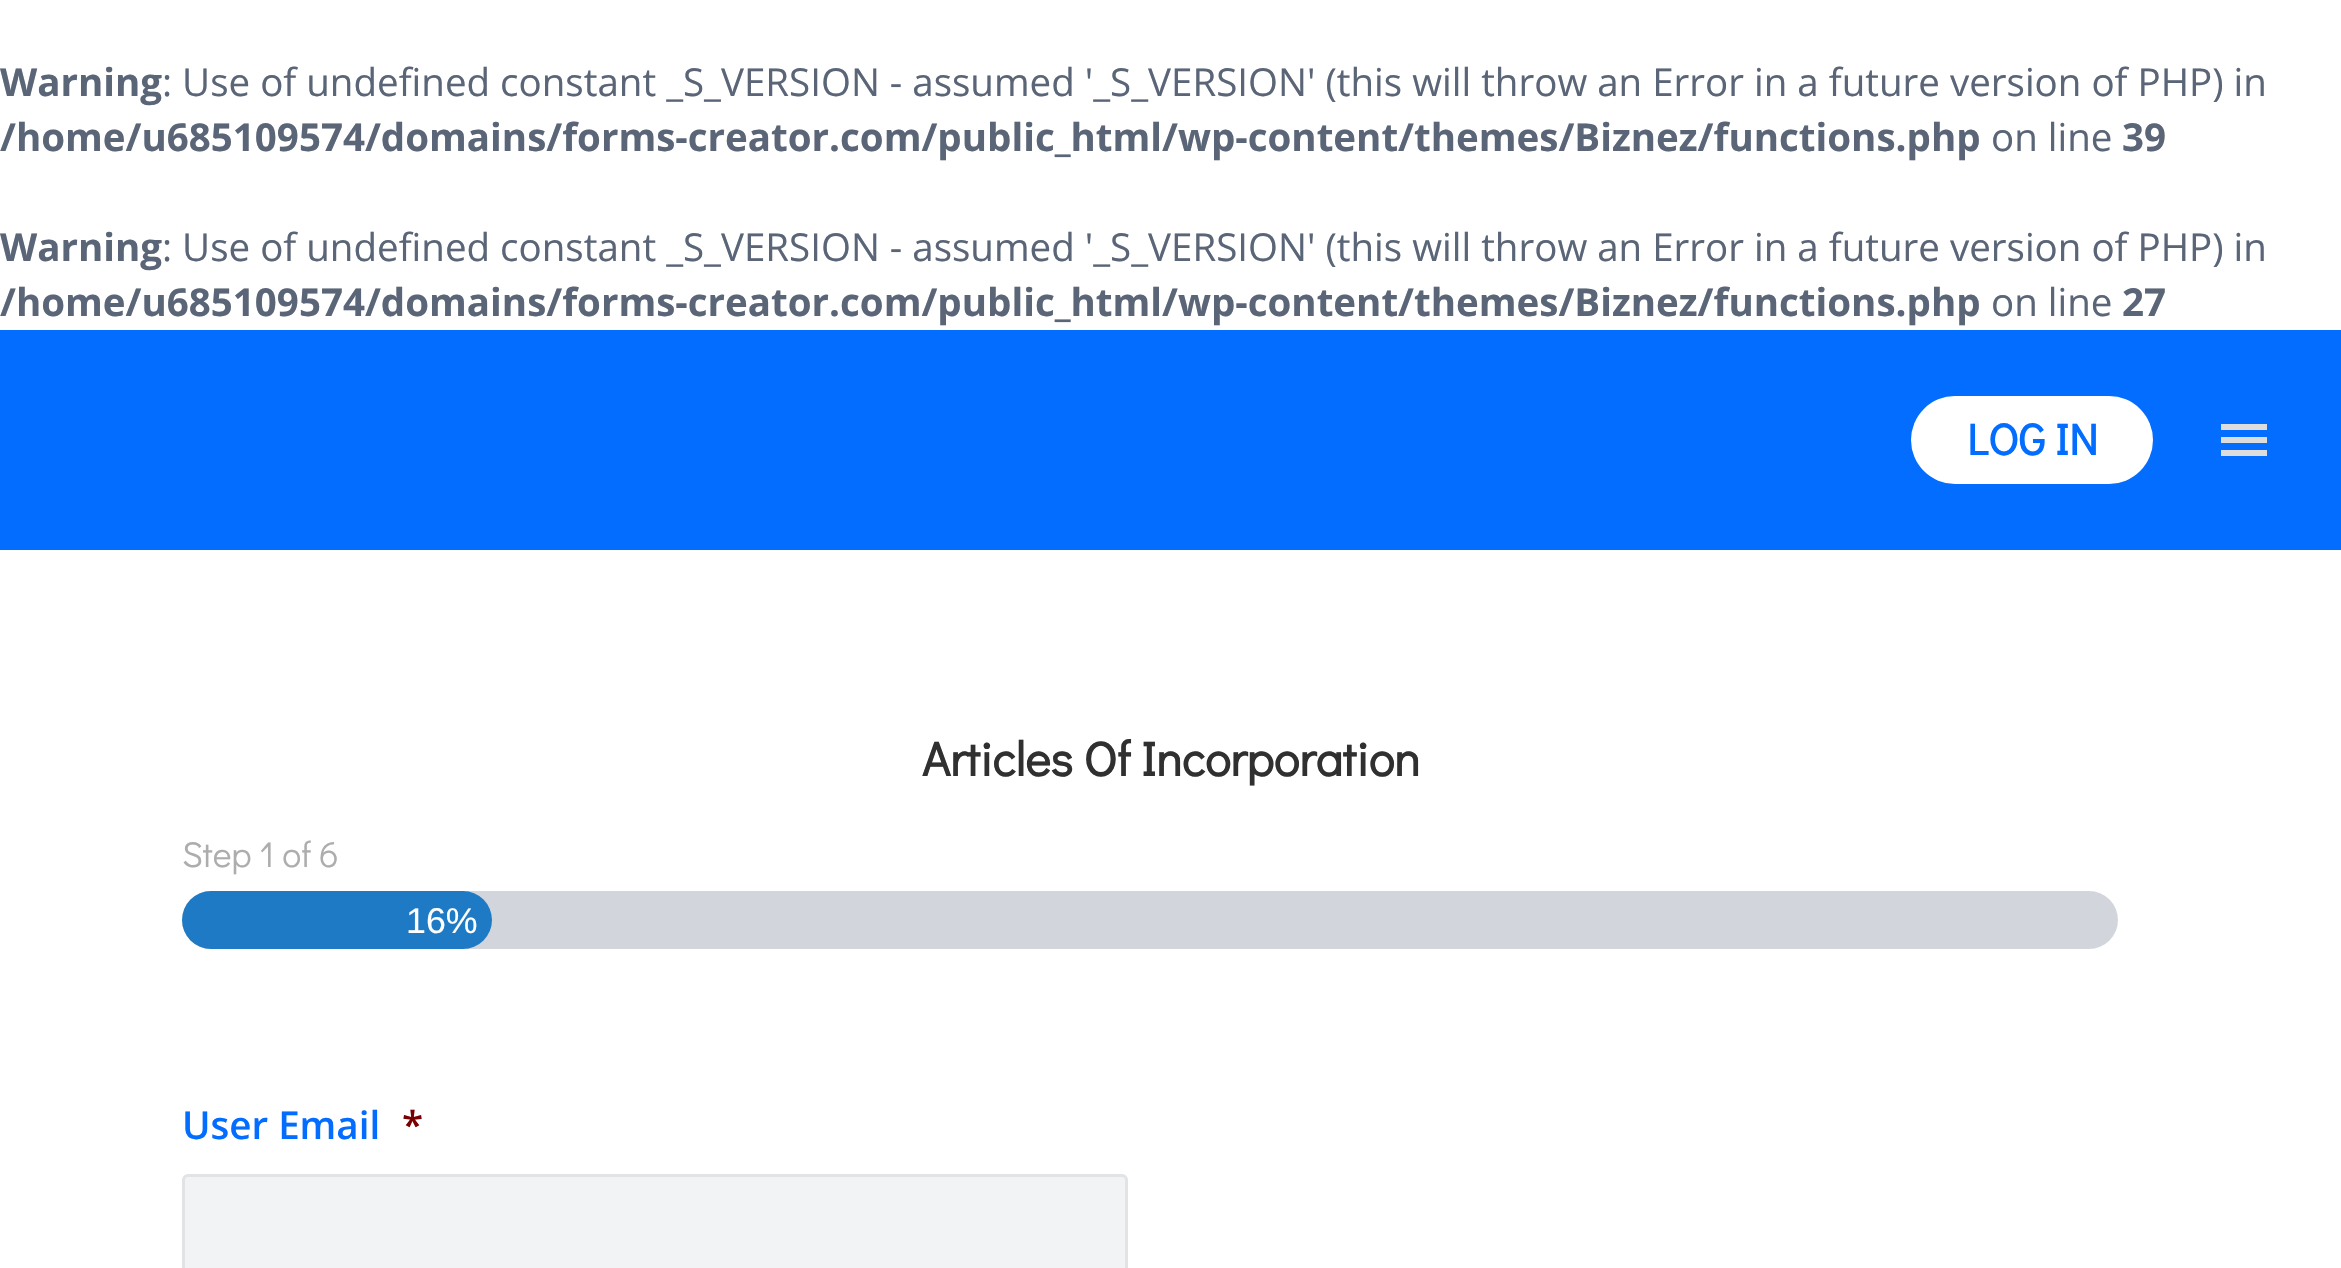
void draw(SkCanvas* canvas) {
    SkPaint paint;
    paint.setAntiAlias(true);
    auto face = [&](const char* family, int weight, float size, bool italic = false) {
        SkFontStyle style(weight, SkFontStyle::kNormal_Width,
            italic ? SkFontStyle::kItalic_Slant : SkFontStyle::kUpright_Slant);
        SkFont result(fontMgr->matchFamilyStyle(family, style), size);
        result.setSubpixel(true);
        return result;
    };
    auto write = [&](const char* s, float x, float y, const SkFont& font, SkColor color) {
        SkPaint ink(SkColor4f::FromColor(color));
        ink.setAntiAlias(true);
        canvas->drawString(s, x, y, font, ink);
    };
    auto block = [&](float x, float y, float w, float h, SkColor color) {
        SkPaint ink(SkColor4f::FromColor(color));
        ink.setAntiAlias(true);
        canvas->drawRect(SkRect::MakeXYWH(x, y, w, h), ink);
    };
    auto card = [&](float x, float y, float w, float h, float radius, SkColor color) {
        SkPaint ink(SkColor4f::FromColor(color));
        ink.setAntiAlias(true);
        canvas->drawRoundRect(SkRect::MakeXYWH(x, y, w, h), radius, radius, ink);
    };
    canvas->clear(SK_ColorWHITE);
    auto kFont1 = face("Open Sans", 700, 38.5f);
    write("Warning", 0, 96, kFont1, SkColorSetRGB(90, 101, 119));
    auto kFont2 = face("Open Sans", 400, 38.5f);
    write(": Use of undefined constant _S_VERSION - assumed '_S_VERSION' (this will throw an Error in a future version of PHP) in", 162, 96, kFont2, SkColorSetRGB(90, 101, 119));
    write("/home/u685109574/domains/forms-creator.com/public_html/wp-content/themes/Biznez/functions.php", 0, 151, kFont1, SkColorSetRGB(90, 101, 119));
    write("on line", 1991, 151, kFont2, SkColorSetRGB(90, 101, 119));
    write("39", 2122, 151, kFont1, SkColorSetRGB(90, 101, 119));
    write("Warning", 0, 261, kFont1, SkColorSetRGB(90, 101, 119));
    write(": Use of undefined constant _S_VERSION - assumed '_S_VERSION' (this will throw an Error in a future version of PHP) in", 162, 261, kFont2, SkColorSetRGB(90, 101, 119));
    write("/home/u685109574/domains/forms-creator.com/public_html/wp-content/themes/Biznez/functions.php", 0, 316, kFont1, SkColorSetRGB(90, 101, 119));
    write("on line", 1991, 316, kFont2, SkColorSetRGB(90, 101, 119));
    write("27", 2122, 316, kFont1, SkColorSetRGB(90, 101, 119));
    block(0, 330, 2341, 220, SkColorSetRGB(2, 109, 255));
    card(1911, 396, 242, 88, 44, SK_ColorWHITE);
    auto kFont3 = face("Didact Gothic", 700, 44);
    write("LOG IN", 1967, 455, kFont3, SkColorSetRGB(2, 109, 255));
    paint.setColor(SkColorSetRGB(221, 221, 221));
    canvas->drawPath(SkPathBuilder().moveTo(2221, 456).lineTo(2267, 456).lineTo(2267, 450).lineTo(2221, 450).close().moveTo(2221, 424).lineTo(2221, 430).lineTo(2267, 430).lineTo(2267, 424).close().moveTo(2221, 443).lineTo(2267, 443).lineTo(2267, 437).lineTo(2221, 437).close().detach(), paint);
    auto kFont4 = face("Didact Gothic", 700, 48.1f);
    write("Articles Of Incorporation", 922, 776, kFont4, SkColorSetRGB(48, 48, 48));
    auto kFont5 = face("Didact Gothic", 400, 35.75f);
    write("Step 1 of 6", 182, 867, kFont5, SkColorSetRGB(173, 173, 173));
    card(182, 891, 1936, 58, 29, SkColorSetRGB(210, 214, 220));
    card(182, 891, 310, 58, 29, SkColorSetRGB(30, 122, 196));
    auto kFont6 = face("Liberation Sans", 400, 35.75f);
    write("16%", 406, 933, kFont6, SK_ColorWHITE);
    auto kFont7 = face("Open Sans", 600, 38.5f);
    write("User Email", 182, 1139, kFont7, SkColorSetRGB(2, 109, 255));
    write("*", 402, 1139, kFont7, SkColorSetRGB(121, 0, 0));
    paint.setColor(SkColorSetRGB(242, 243, 245));
    canvas->drawRoundRect(SkRect::MakeXYWH(183.5f, 1175.5f, 943, 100), 4.5f, 4.5f, paint);
    paint.setStyle(SkPaint::kStroke_Style);
    paint.setStrokeWidth(3);
    paint.setColor(SkColorSetRGB(226, 227, 229));
    canvas->drawRoundRect(SkRect::MakeXYWH(183.5f, 1175.5f, 943, 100), 4.5f, 4.5f, paint);
}
